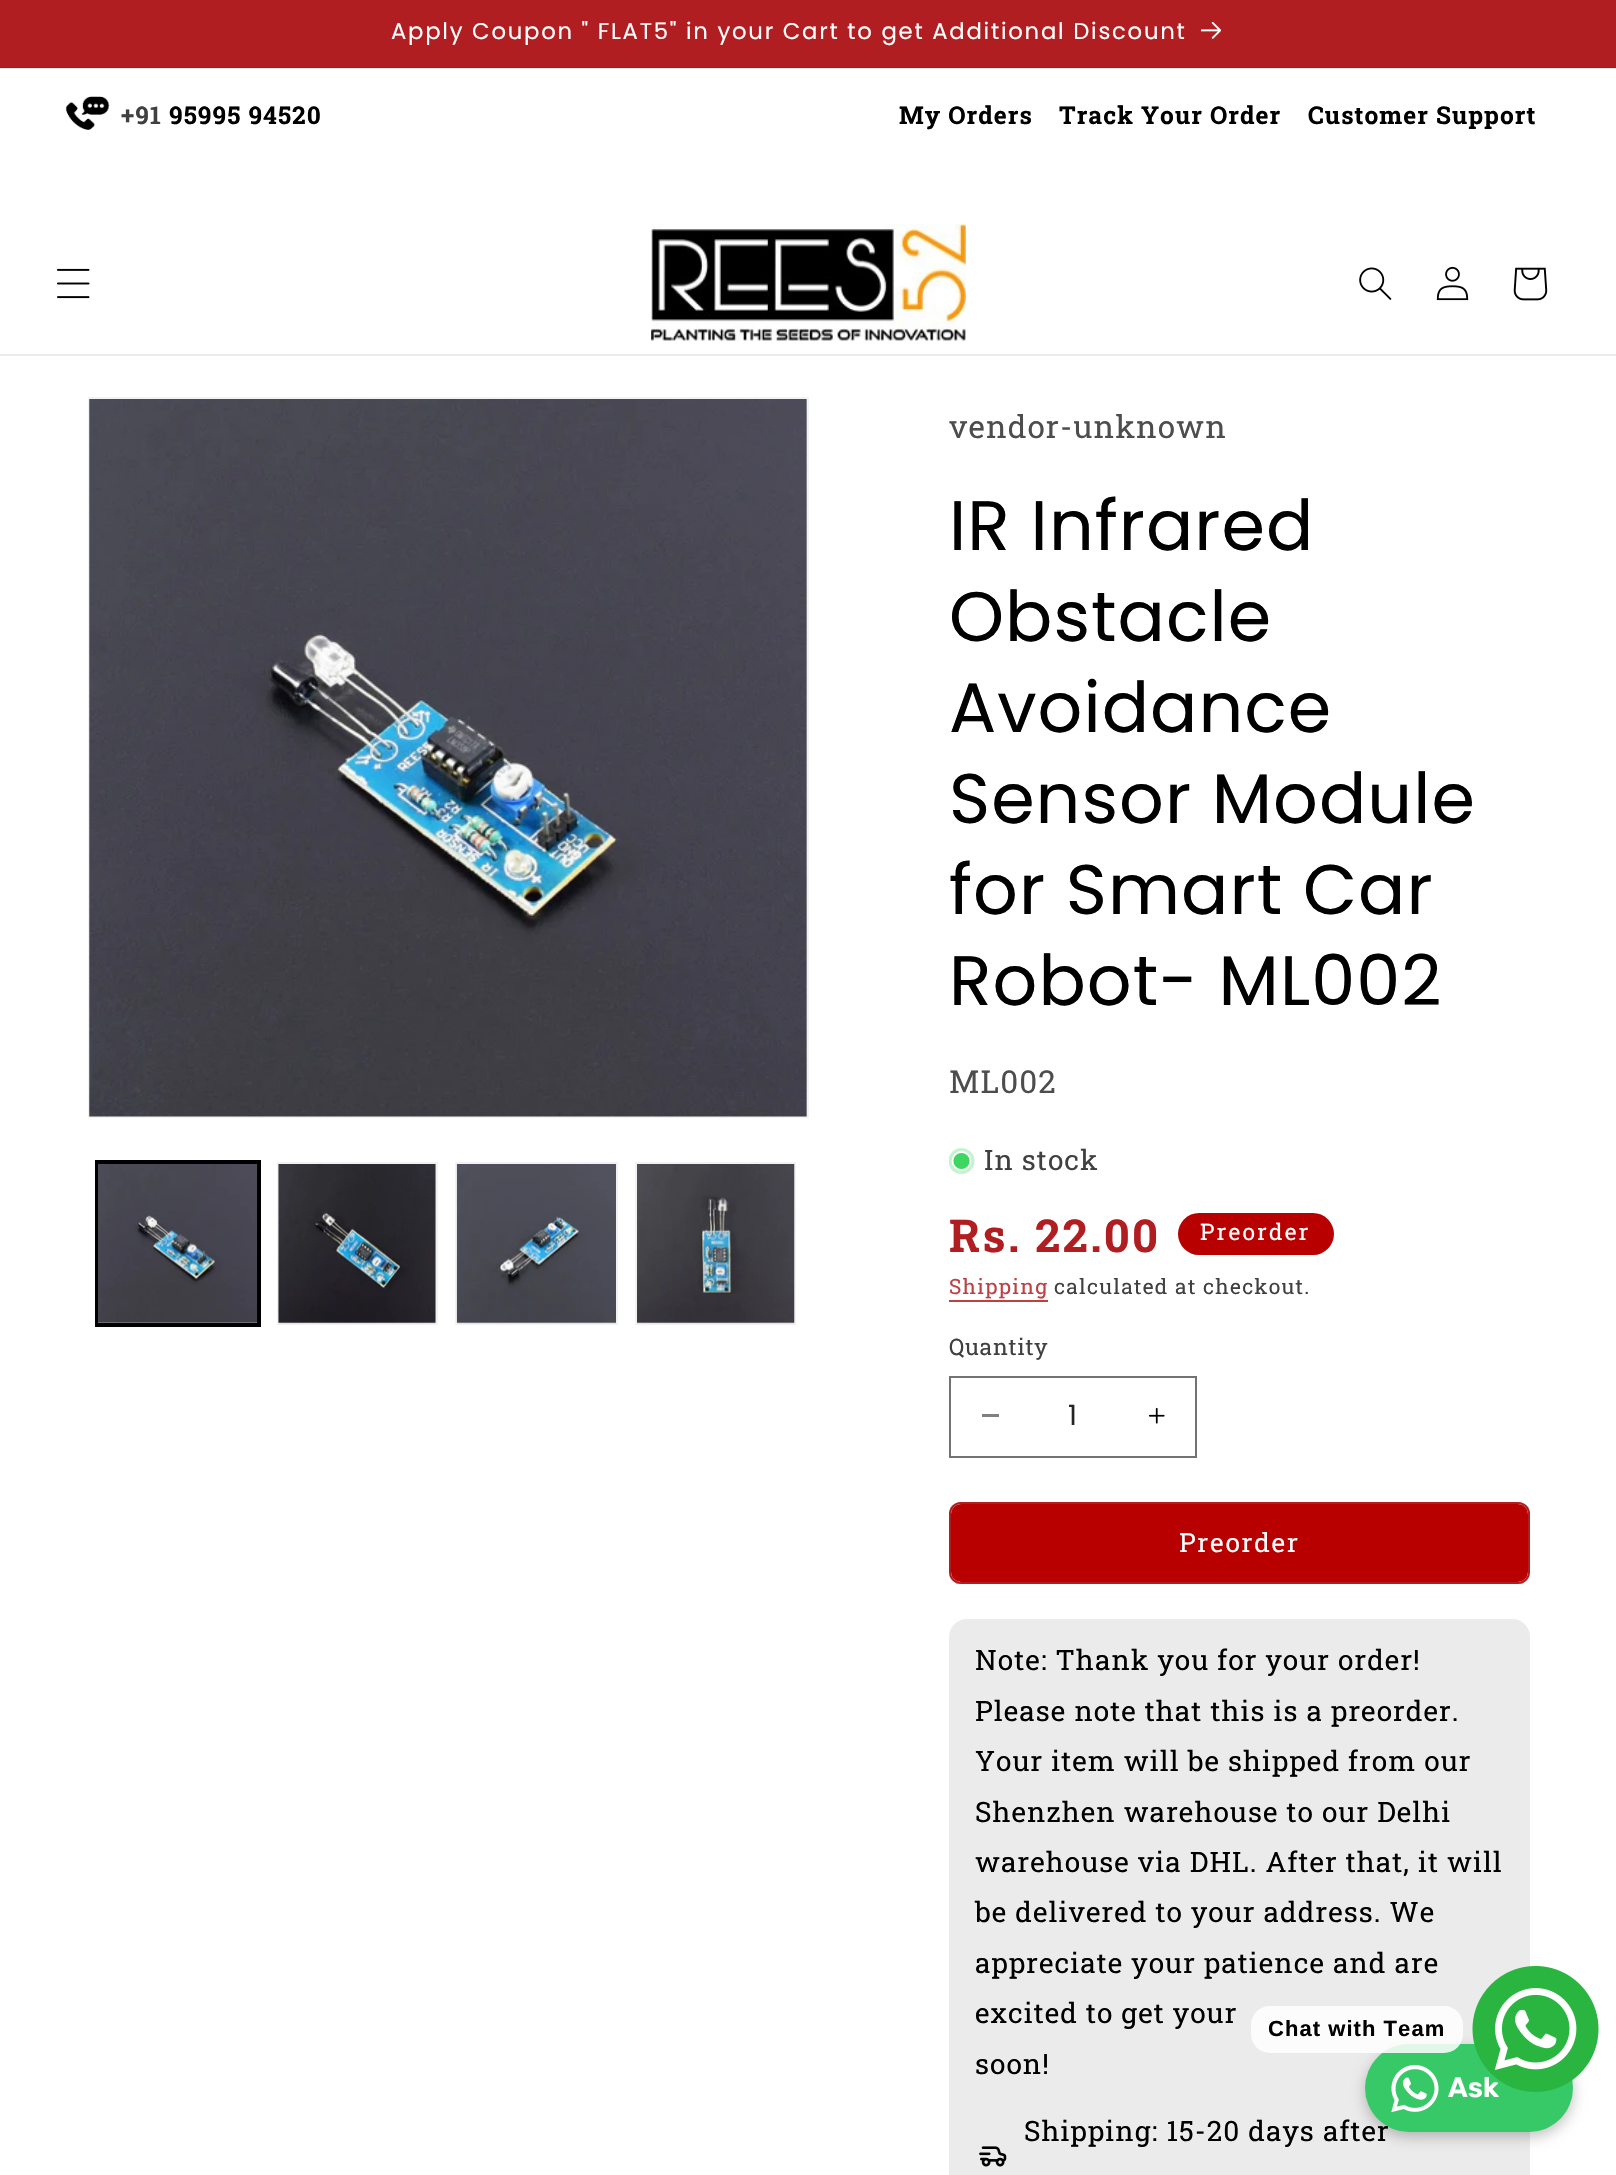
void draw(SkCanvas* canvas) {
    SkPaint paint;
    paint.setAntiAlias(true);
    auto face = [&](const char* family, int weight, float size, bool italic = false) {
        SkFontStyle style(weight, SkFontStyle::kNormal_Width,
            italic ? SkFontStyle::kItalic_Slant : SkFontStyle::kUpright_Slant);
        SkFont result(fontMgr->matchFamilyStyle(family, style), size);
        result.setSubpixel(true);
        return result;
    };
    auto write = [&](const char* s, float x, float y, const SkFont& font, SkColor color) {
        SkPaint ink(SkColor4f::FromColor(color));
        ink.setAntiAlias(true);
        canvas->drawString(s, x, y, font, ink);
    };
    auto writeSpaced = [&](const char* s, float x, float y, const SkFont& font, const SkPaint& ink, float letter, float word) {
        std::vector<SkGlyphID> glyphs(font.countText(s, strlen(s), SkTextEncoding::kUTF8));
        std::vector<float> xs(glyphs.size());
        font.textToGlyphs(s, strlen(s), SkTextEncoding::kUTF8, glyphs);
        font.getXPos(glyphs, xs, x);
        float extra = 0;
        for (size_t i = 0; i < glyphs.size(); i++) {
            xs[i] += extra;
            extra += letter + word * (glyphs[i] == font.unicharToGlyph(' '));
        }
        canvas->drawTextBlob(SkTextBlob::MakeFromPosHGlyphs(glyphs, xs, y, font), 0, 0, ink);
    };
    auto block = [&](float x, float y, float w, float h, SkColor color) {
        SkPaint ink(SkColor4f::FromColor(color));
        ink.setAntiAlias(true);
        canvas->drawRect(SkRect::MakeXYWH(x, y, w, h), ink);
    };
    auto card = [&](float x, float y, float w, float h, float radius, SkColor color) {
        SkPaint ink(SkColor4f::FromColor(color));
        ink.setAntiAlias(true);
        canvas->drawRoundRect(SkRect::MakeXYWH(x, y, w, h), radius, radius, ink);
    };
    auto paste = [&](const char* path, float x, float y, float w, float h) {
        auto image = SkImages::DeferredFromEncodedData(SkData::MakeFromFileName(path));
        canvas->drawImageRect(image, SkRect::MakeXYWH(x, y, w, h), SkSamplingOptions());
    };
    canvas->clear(SK_ColorWHITE);
    block(0, 68, 1616, 1, SkColorSetRGB(235, 235, 235));
    block(0, 0, 1616, 67, SkColorSetRGB(177, 30, 34));
    block(0, 67, 1616, 1, SkColorSetRGB(163, 28, 31));
    auto kFont1 = face("Poppins", 400, 22.75f);
    paint.setColor(SK_ColorWHITE);
    writeSpaced("Apply Coupon \" FLAT5\" in your Cart to get Additional Discount", 391, 39, kFont1, paint, 1.75f, 0);
    paste("pic1.png", 1201, 21, 21, 18);
    paste("pic2.png", 65, 96, 45, 34);
    auto kFont2 = face("Roboto Slab", 700, 24.5f);
    paint.setColor(SkColorSetRGB(64, 64, 64));
    writeSpaced("+91", 121, 124, kFont2, paint, 1.05f, 0);
    paint.setColor(SK_ColorBLACK);
    writeSpaced("95995 94520", 169, 124, kFont2, paint, 1.05f, 0);
    writeSpaced("My Orders", 899, 124, kFont2, paint, 1.05f, 0);
    writeSpaced("Track Your Order", 1059, 124, kFont2, paint, 1.05f, 0);
    writeSpaced("Customer Support", 1308, 124, kFont2, paint, 1.05f, 0);
    block(0, 354, 1616, 2, SkColorSetRGB(235, 235, 235));
    paste("pic3.png", 57, 268, 33, 31);
    paste("pic4.png", 651, 224, 315, 118);
    paste("pic5.png", 1359, 267, 33, 33);
    paste("pic6.png", 1436, 266, 33, 35);
    paste("pic7.png", 1513, 267, 35, 34);
    paint.setStyle(SkPaint::kStroke_Style);
    paint.setStrokeWidth(2);
    paint.setColor(SkColorSetRGB(242, 242, 242));
    canvas->drawRect(SkRect::MakeXYWH(89, 398, 719, 719), paint);
    paste("pic8.png", 89, 399, 718, 718);
    paint.setColor(SK_ColorBLACK);
    canvas->drawRect(SkRect::MakeXYWH(96, 1161, 164, 165), paint);
    canvas->drawRect(SkRect::MakeXYWH(97, 1163, 161, 161), paint);
    paste("pic9.png", 98, 1164, 160, 160);
    paint.setColor(SkColorSetRGB(242, 242, 242));
    canvas->drawRect(SkRect::MakeXYWH(278, 1163, 159, 161), paint);
    paste("pic10.png", 278, 1164, 158, 160);
    canvas->drawRect(SkRect::MakeXYWH(456, 1163, 161, 161), paint);
    paste("pic11.png", 456, 1164, 160, 160);
    canvas->drawRect(SkRect::MakeXYWH(636, 1163, 159, 161), paint);
    paste("pic12.png", 637, 1164, 158, 160);
    auto kFont3 = face("Roboto Slab", 400, 31.5f);
    paint.setStyle(SkPaint::kFill_Style);
    paint.setColor(SkColorSetRGB(77, 77, 77));
    writeSpaced("vendor-unknown", 949, 438, kFont3, paint, 1.05f, 0);
    auto kFont4 = face("Poppins", 400, 70);
    paint.setColor(SK_ColorBLACK);
    writeSpaced("IR Infrared", 949, 550, kFont4, paint, 1.05f, 0);
    writeSpaced("Obstacle", 949, 641, kFont4, paint, 1.05f, 0);
    writeSpaced("Avoidance", 949, 732, kFont4, paint, 1.05f, 0);
    writeSpaced("Sensor Module", 949, 823, kFont4, paint, 1.05f, 0);
    writeSpaced("for Smart Car", 949, 914, kFont4, paint, 1.05f, 0);
    writeSpaced("Robot- ML002", 949, 1005, kFont4, paint, 1.05f, 0);
    paint.setColor(SkColorSetRGB(77, 77, 77));
    writeSpaced("ML002", 949, 1093, kFont3, paint, 1.05f, 0);
    canvas->save();
    canvas->clipRect(SkRect::MakeXYWH(949, 1148, 26, 26));
    paint.setColor(SkColorSetRGB(197, 243, 207));
    canvas->drawCircle(961.5f, 1161, 13, paint);
    canvas->restore();
    paint.setColor(SkColorSetRGB(62, 214, 96));
    canvas->drawCircle(961.5f, 1161, 9, paint);
    paint.setStyle(SkPaint::kStroke_Style);
    paint.setStrokeWidth(1.8f);
    paint.setColor(SK_ColorWHITE);
    canvas->drawCircle(961.5f, 1161, 9, paint);
    auto kFont5 = face("Roboto Slab", 400, 28);
    paint.setStyle(SkPaint::kFill_Style);
    paint.setColor(SkColorSetRGB(64, 64, 64));
    writeSpaced("In stock", 984, 1170, kFont5, paint, 1.05f, 0);
    auto kFont6 = face("Roboto Slab", 700, 45.5f);
    paint.setColor(SkColorSetRGB(177, 30, 34));
    writeSpaced("Rs. 22.00", 949, 1252, kFont6, paint, 2.25f, 0);
    card(1178, 1213, 156, 42, 21, SkColorSetRGB(184, 0, 0));
    auto kFont7 = face("Roboto Slab", 400, 22.75f);
    paint.setColor(SK_ColorWHITE);
    writeSpaced("Preorder", 1200, 1240, kFont7, paint, 2.25f, 0);
    auto kFont8 = face("Roboto Slab", 400, 21);
    paint.setColor(SkColorSetRGB(189, 64, 67));
    writeSpaced("Shipping", 949, 1294, kFont8, paint, 1.25f, 0);
    block(949, 1300, 99, 2, SkColorSetRGB(189, 64, 67));
    paint.setColor(SkColorSetRGB(64, 64, 64));
    writeSpaced("calculated at checkout.", 1054, 1294, kFont8, paint, 1.25f, 0);
    writeSpaced("Quantity", 949, 1355, kFont7, paint, 0.75f, 0);
    block(982, 1414, 17, 3, SkColorSetRGB(128, 128, 128));
    paste("pic13.png", 1148, 1407, 17, 17);
    paint.setStyle(SkPaint::kStroke_Style);
    paint.setStrokeWidth(2);
    paint.setColor(SkColorSetRGB(115, 115, 115));
    canvas->drawRect(SkRect::MakeXYWH(950, 1377, 246, 80), paint);
    auto kFont9 = face("Poppins", 400, 28);
    write("1", 1068, 1425, kFont9, SkColorSetRGB(38, 38, 38));
    card(949, 1502, 581, 82, 12, SkColorSetRGB(184, 0, 0));
    paint.setColor(SK_ColorWHITE);
    canvas->drawRoundRect(SkRect::MakeXYWH(950, 1503, 579, 80), 11, 11, paint);
    paint.setColor(SkColorSetRGB(177, 30, 34));
    canvas->drawRoundRect(SkRect::MakeXYWH(950, 1503, 579, 80), 11, 11, paint);
    auto kFont10 = face("Roboto Slab", 400, 26.25f);
    paint.setStyle(SkPaint::kFill_Style);
    paint.setColor(SK_ColorWHITE);
    writeSpaced("Preorder", 1179, 1552, kFont10, paint, 1.75f, 0);
    card(949, 1619, 581, 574, 18, SkColorSetRGB(235, 235, 235));
    paint.setColor(SK_ColorBLACK);
    writeSpaced("Note: Thank you for your order!", 975, 1670, kFont5, paint, 1.05f, 0);
    writeSpaced("Please note that this is a preorder.", 975, 1721, kFont5, paint, 1.05f, 0);
    writeSpaced("Your item will be shipped from our", 975, 1771, kFont5, paint, 1.05f, 0);
    writeSpaced("Shenzhen warehouse to our Delhi", 975, 1822, kFont5, paint, 1.05f, 0);
    writeSpaced("warehouse via DHL. After that, it will", 975, 1872, kFont5, paint, 1.05f, 0);
    writeSpaced("be delivered to your address. We", 975, 1922, kFont5, paint, 1.05f, 0);
    writeSpaced("appreciate your patience and are", 975, 1973, kFont5, paint, 1.05f, 0);
    writeSpaced("excited to get your", 975, 2023, kFont5, paint, 1.05f, 0);
    writeSpaced("soon!", 975, 2074, kFont5, paint, 1.05f, 0);
    writeSpaced("Shipping: 15-20 days after", 1024, 2141, kFont5, paint, 1.05f, 0);
    paste("pic14.png", 979, 2146, 28, 21);
    paint.setColor(SkColorSetARGB(61, 0, 0, 0));
    paint.setMaskFilter(SkMaskFilter::MakeBlur(kNormal_SkBlurStyle, 7));
    canvas->drawRoundRect(SkRect::MakeXYWH(1365, 2049, 208, 88), 44, 44, paint);
    paint.setMaskFilter(nullptr);
    card(1365, 2044, 208, 88, 44, SkColorSetRGB(55, 201, 104));
    card(1251, 2006, 212, 47, 19, SkColorSetARGB(217, 255, 255, 255));
    auto kFont11 = face("Liberation Sans", 700, 22);
    paint.setColor(SK_ColorBLACK);
    writeSpaced("Chat with Team", 1268, 2036, kFont11, paint, 1.05f, 0);
    auto kFont12 = face("Rubik", 600, 28);
    write("Ask", 1448, 2097, kFont12, SK_ColorWHITE);
    paste("pic15.png", 1472, 1966, 127, 126);
    paste("pic16.png", 1391, 2065, 48, 47);
}
